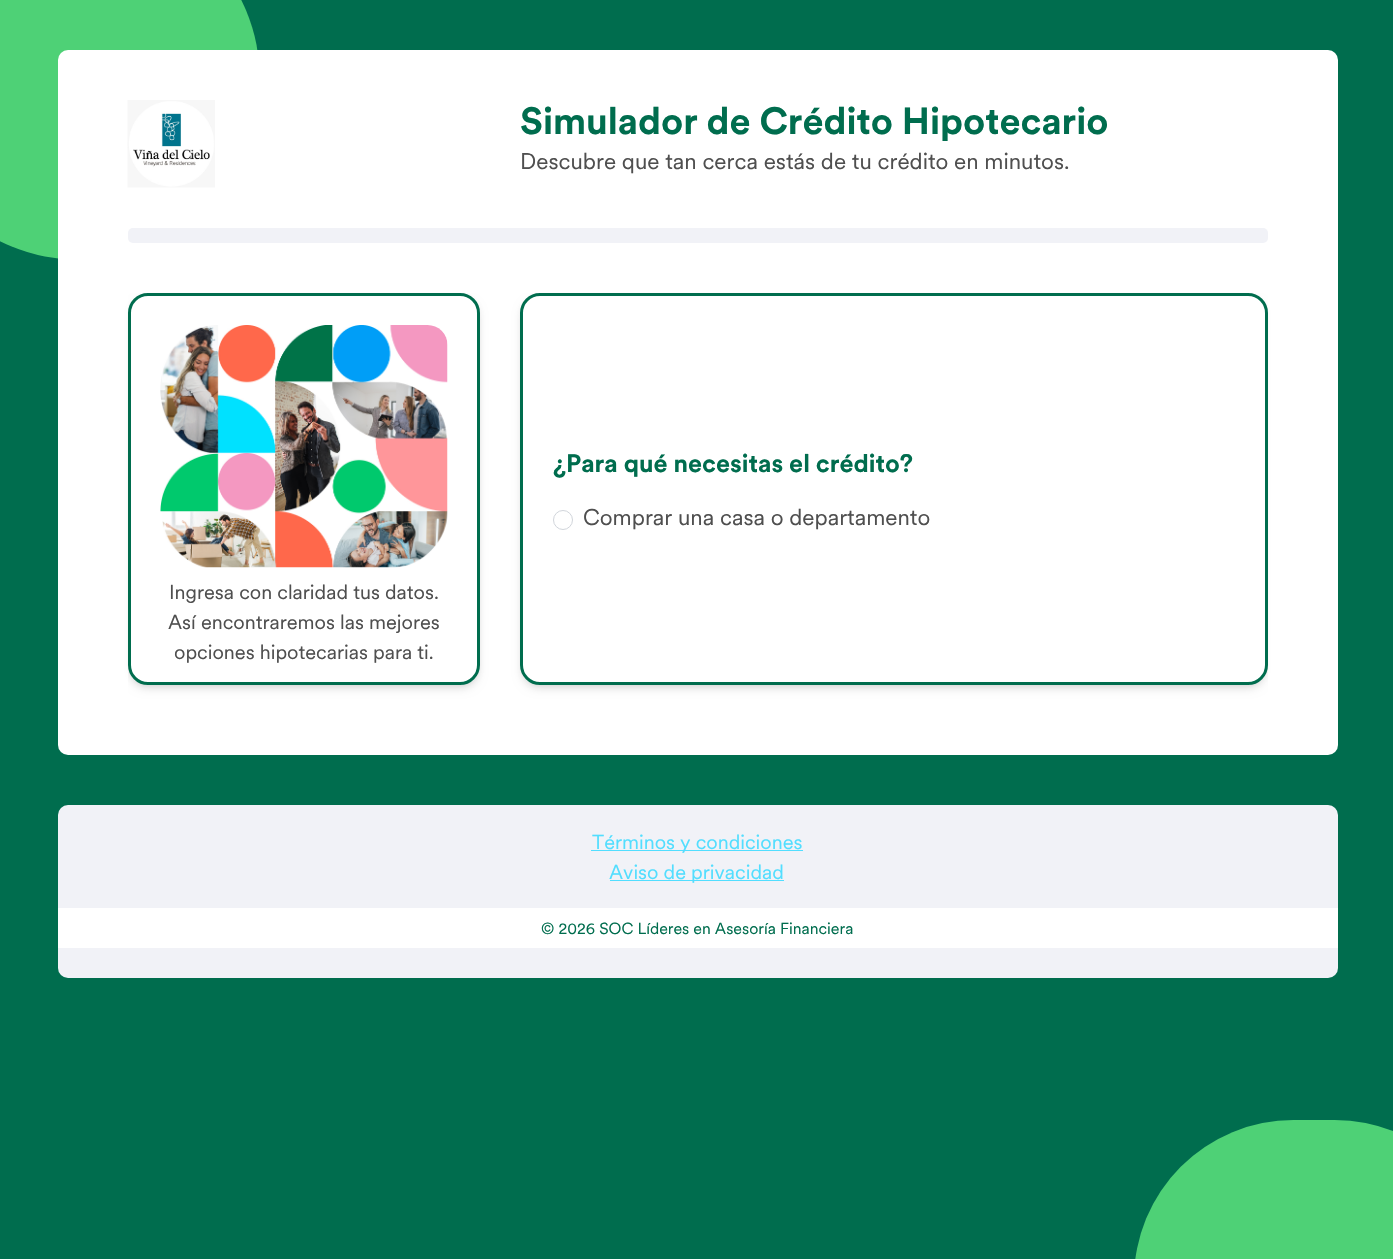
void draw(SkCanvas* canvas) {
    SkPaint paint;
    paint.setAntiAlias(true);
    auto face = [&](const char* family, int weight, float size, bool italic = false) {
        SkFontStyle style(weight, SkFontStyle::kNormal_Width,
            italic ? SkFontStyle::kItalic_Slant : SkFontStyle::kUpright_Slant);
        SkFont result(fontMgr->matchFamilyStyle(family, style), size);
        result.setSubpixel(true);
        return result;
    };
    auto write = [&](const char* s, float x, float y, const SkFont& font, SkColor color) {
        SkPaint ink(SkColor4f::FromColor(color));
        ink.setAntiAlias(true);
        canvas->drawString(s, x, y, font, ink);
    };
    auto block = [&](float x, float y, float w, float h, SkColor color) {
        SkPaint ink(SkColor4f::FromColor(color));
        ink.setAntiAlias(true);
        canvas->drawRect(SkRect::MakeXYWH(x, y, w, h), ink);
    };
    auto card = [&](float x, float y, float w, float h, float radius, SkColor color) {
        SkPaint ink(SkColor4f::FromColor(color));
        ink.setAntiAlias(true);
        canvas->drawRoundRect(SkRect::MakeXYWH(x, y, w, h), radius, radius, ink);
    };
    auto paste = [&](const char* path, float x, float y, float w, float h) {
        auto image = SkImages::DeferredFromEncodedData(SkData::MakeFromFileName(path));
        canvas->drawImageRect(image, SkRect::MakeXYWH(x, y, w, h), SkSamplingOptions());
    };
    canvas->clear(SkColorSetRGB(0, 109, 78));
    paint.setColor(SkColorSetRGB(78, 209, 118));
    canvas->drawCircle(80, 80, 180, paint);
    card(58, 50, 1280, 705, 10, SK_ColorWHITE);
    paste("pic1.png", 127, 100, 88, 88);
    auto kFont1 = face("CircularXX", 700, 37.5f);
    write("Simulador de Crédito Hipotecario", 520, 134, kFont1, SkColorSetRGB(0, 109, 78));
    auto kFont2 = face("CircularXX", 400, 22.5f);
    write("Descubre que tan cerca estás de tu crédito en minutos.", 520, 169, kFont2, SkColorSetRGB(79, 79, 79));
    card(128, 228, 1140, 15, 5, SkColorSetRGB(241, 242, 247));
    canvas->save();
    canvas->clipPath(SkPathBuilder(SkPathFillType::kEvenOdd).moveTo(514, 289).lineTo(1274, 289).lineTo(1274, 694).lineTo(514, 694).close().moveTo(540, 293).lineTo(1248, 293).cubicTo(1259, 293, 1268, 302, 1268, 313).lineTo(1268, 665).cubicTo(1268, 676, 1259, 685, 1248, 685).lineTo(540, 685).cubicTo(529, 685, 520, 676, 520, 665).lineTo(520, 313).cubicTo(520, 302, 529, 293, 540, 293).close().detach(), true);
    paint.setColor(SkColorSetARGB(26, 0, 0, 0));
    paint.setMaskFilter(SkMaskFilter::MakeBlur(kNormal_SkBlurStyle, 2.5f));
    canvas->drawRoundRect(SkRect::MakeXYWH(523, 298, 742, 387), 18, 18, paint);
    paint.setMaskFilter(nullptr);
    canvas->restore();
    canvas->save();
    canvas->clipRect(SkRect::MakeXYWH(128, 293, 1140, 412));
    canvas->clipPath(SkPathBuilder(SkPathFillType::kEvenOdd).moveTo(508, 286).lineTo(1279, 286).lineTo(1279, 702).lineTo(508, 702).close().moveTo(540, 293).lineTo(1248, 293).cubicTo(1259, 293, 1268, 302, 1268, 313).lineTo(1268, 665).cubicTo(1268, 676, 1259, 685, 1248, 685).lineTo(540, 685).cubicTo(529, 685, 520, 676, 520, 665).lineTo(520, 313).cubicTo(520, 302, 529, 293, 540, 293).close().detach(), true);
    paint.setMaskFilter(SkMaskFilter::MakeBlur(kNormal_SkBlurStyle, 4));
    canvas->drawRoundRect(SkRect::MakeXYWH(521, 299, 745, 390), 19, 19, paint);
    paint.setMaskFilter(nullptr);
    canvas->restore();
    paint.setStyle(SkPaint::kStroke_Style);
    paint.setStrokeWidth(3);
    paint.setColor(SkColorSetRGB(0, 109, 78));
    canvas->drawRoundRect(SkRect::MakeXYWH(521.5f, 294.5f, 745, 389), 18.5f, 18.5f, paint);
    auto kFont3 = face("CircularXX", 700, 25);
    write("¿Para qué necesitas el crédito?", 553, 472, kFont3, SkColorSetRGB(0, 109, 78));
    paint.setStrokeWidth(1);
    paint.setColor(SkColorSetRGB(209, 213, 219));
    canvas->drawCircle(563, 520, 9.5f, paint);
    write("Comprar una casa o departamento", 583, 525, kFont2, SkColorSetRGB(79, 79, 79));
    canvas->save();
    canvas->clipPath(SkPathBuilder(SkPathFillType::kEvenOdd).moveTo(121, 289).lineTo(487, 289).lineTo(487, 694).lineTo(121, 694).close().moveTo(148, 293).lineTo(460, 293).cubicTo(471, 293, 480, 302, 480, 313).lineTo(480, 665).cubicTo(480, 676, 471, 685, 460, 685).lineTo(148, 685).cubicTo(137, 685, 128, 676, 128, 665).lineTo(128, 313).cubicTo(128, 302, 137, 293, 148, 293).close().detach(), true);
    paint.setStyle(SkPaint::kFill_Style);
    paint.setColor(SkColorSetARGB(26, 0, 0, 0));
    paint.setMaskFilter(SkMaskFilter::MakeBlur(kNormal_SkBlurStyle, 2.5f));
    canvas->drawRoundRect(SkRect::MakeXYWH(130, 298, 348, 387), 18, 18, paint);
    paint.setMaskFilter(nullptr);
    canvas->restore();
    canvas->save();
    canvas->clipRect(SkRect::MakeXYWH(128, 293, 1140, 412));
    canvas->clipPath(SkPathBuilder(SkPathFillType::kEvenOdd).moveTo(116, 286).lineTo(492, 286).lineTo(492, 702).lineTo(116, 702).close().moveTo(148, 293).lineTo(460, 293).cubicTo(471, 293, 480, 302, 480, 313).lineTo(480, 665).cubicTo(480, 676, 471, 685, 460, 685).lineTo(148, 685).cubicTo(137, 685, 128, 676, 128, 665).lineTo(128, 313).cubicTo(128, 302, 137, 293, 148, 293).close().detach(), true);
    paint.setMaskFilter(SkMaskFilter::MakeBlur(kNormal_SkBlurStyle, 4));
    canvas->drawRoundRect(SkRect::MakeXYWH(129, 299, 350, 390), 19, 19, paint);
    paint.setMaskFilter(nullptr);
    canvas->restore();
    paint.setStyle(SkPaint::kStroke_Style);
    paint.setStrokeWidth(3);
    paint.setColor(SkColorSetRGB(0, 109, 78));
    canvas->drawRoundRect(SkRect::MakeXYWH(129.5f, 294.5f, 349, 389), 18.5f, 18.5f, paint);
    paste("pic2.png", 160, 325, 288, 243);
    auto kFont4 = face("CircularXX", 400, 20);
    write("Ingresa con claridad tus datos.", 169, 599, kFont4, SkColorSetRGB(79, 79, 79));
    write("Así encontraremos las mejores", 168, 629, kFont4, SkColorSetRGB(79, 79, 79));
    write("opciones hipotecarias para ti.", 174, 659, kFont4, SkColorSetRGB(79, 79, 79));
    card(58, 805, 1280, 173, 10, SkColorSetRGB(241, 242, 247));
    block(591, 850, 212, 1, SkColorSetRGB(82, 222, 255));
    write("Términos y condiciones", 592, 849, kFont4, SkColorSetRGB(82, 222, 255));
    block(610, 880, 174, 1, SkColorSetRGB(82, 222, 255));
    write("Aviso de privacidad", 609, 879, kFont4, SkColorSetRGB(82, 222, 255));
    block(58, 908, 1280, 40, SK_ColorWHITE);
    auto kFont5 = face("CircularXX", 400, 16);
    write("© 2026 SOC Líderes en Asesoría Financiera", 541, 934, kFont5, SkColorSetRGB(0, 109, 78));
    card(1134, 1120, 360, 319, 180, SkColorSetRGB(78, 209, 118));
}
